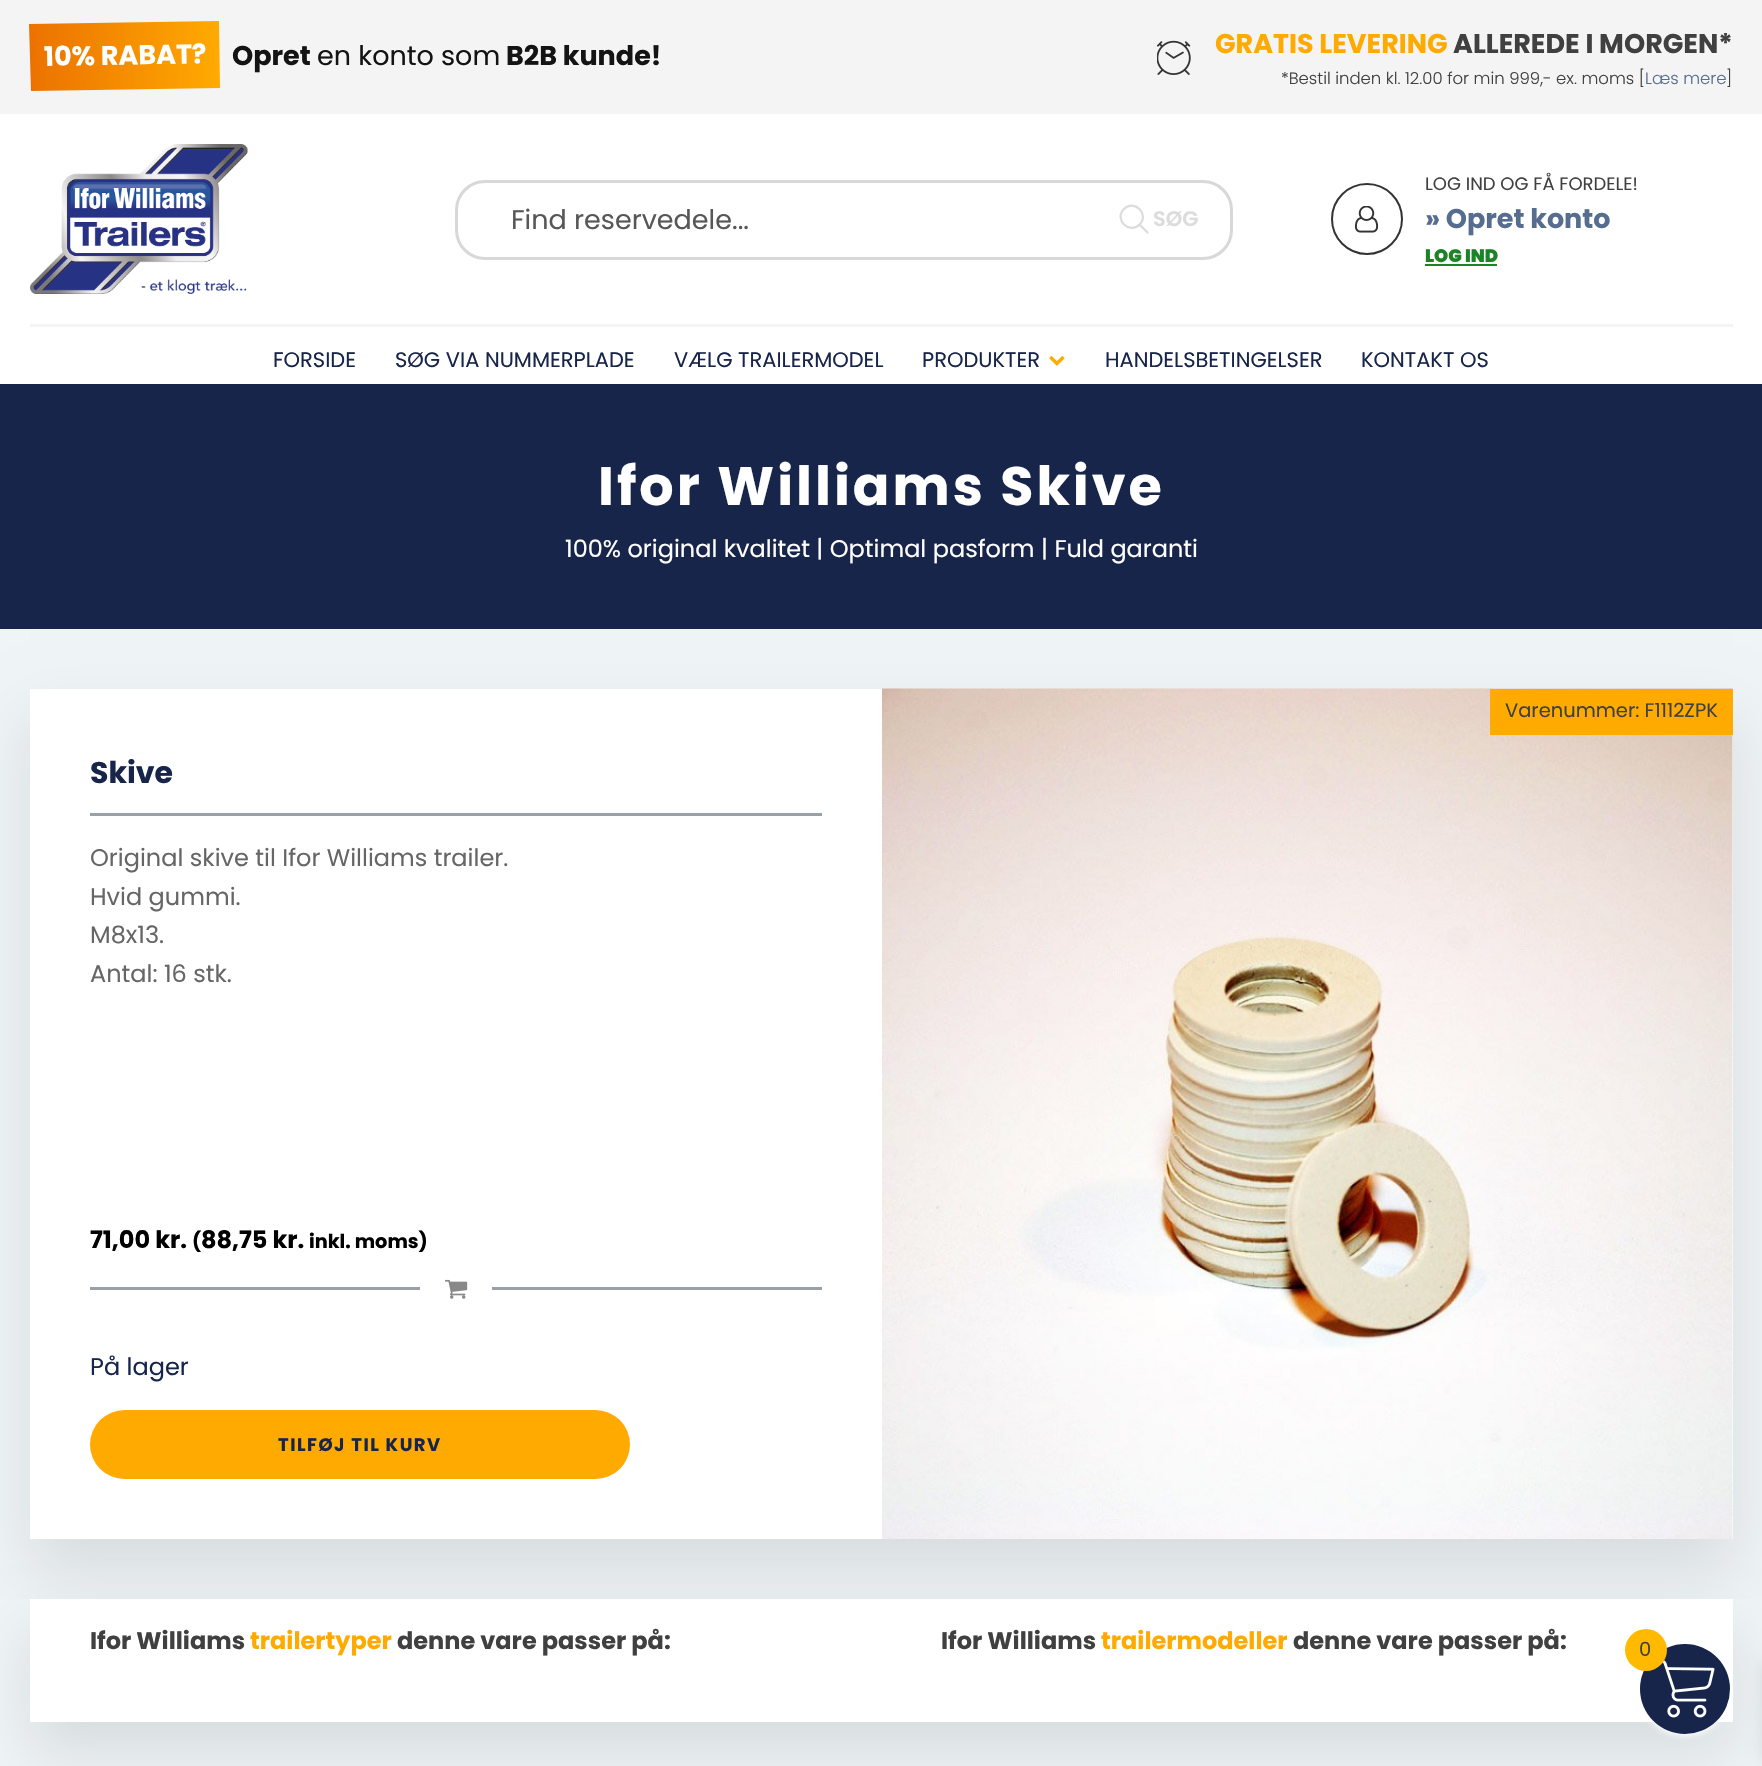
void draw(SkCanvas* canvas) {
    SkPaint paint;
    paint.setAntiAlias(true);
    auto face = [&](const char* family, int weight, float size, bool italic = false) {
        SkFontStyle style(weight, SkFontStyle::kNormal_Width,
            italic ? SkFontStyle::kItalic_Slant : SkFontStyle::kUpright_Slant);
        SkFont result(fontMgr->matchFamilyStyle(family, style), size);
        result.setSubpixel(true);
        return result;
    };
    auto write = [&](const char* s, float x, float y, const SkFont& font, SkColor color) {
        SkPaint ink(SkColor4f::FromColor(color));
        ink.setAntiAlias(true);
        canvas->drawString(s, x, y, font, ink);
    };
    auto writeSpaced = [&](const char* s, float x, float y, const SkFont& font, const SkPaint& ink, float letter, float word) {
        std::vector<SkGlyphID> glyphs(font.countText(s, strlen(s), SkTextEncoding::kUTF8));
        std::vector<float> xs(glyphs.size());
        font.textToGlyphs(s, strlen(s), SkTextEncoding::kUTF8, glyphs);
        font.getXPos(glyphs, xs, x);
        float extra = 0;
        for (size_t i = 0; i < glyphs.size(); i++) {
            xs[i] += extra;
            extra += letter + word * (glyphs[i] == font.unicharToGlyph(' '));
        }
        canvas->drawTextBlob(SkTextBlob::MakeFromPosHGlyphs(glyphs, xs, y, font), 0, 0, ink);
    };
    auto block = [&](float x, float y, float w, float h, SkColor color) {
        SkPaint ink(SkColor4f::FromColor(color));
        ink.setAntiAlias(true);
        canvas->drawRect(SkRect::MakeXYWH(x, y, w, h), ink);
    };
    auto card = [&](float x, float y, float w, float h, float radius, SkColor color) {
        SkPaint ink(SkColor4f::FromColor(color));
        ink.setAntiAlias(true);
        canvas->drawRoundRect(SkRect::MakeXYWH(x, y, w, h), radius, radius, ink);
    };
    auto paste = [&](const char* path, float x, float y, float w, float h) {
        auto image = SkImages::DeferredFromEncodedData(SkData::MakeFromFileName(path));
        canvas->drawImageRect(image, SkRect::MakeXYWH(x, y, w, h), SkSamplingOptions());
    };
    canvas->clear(SK_ColorWHITE);
    block(0, 0, 1762, 114, SkColorSetRGB(244, 244, 244));
    {
        const SkColor colors[] = {SkColorSetRGB(236, 114, 0), SkColorSetRGB(255, 170, 1)};
        const float stops[] = {0, 1};
        const SkPoint ends[] = {{30, 58}, {220, 54}};
        paint.setShader(SkGradientShader::MakeLinear(ends, colors, stops, 2, SkTileMode::kClamp));
        paint.setAlpha(255);
    }
    canvas->drawPath(SkPathBuilder().moveTo(29, 24).lineTo(219, 21).lineTo(220, 88).lineTo(31, 91).close().detach(), paint);
    auto kFont1 = face("Poppins", 700, 27);
    canvas->save();
    canvas->rotate(-1, 44, 66);
    write("10% RABAT?", 44, 66, kFont1, SK_ColorWHITE);
    canvas->restore();
    write("Opret", 232, 65, kFont1, SkColorSetRGB(20, 20, 20));
    auto kFont2 = face("Poppins", 400, 27);
    write("en konto som", 317, 65, kFont2, SkColorSetRGB(20, 20, 20));
    write("B2B kunde!", 506, 65, kFont1, SkColorSetRGB(20, 20, 20));
    paste("pic1.png", 1157, 40, 34, 35);
    write("GRATIS LEVERING", 1215, 53, kFont1, SkColorSetRGB(255, 170, 1));
    write("ALLEREDE I MORGEN*", 1453, 53, kFont1, SkColorSetRGB(64, 64, 64));
    auto kFont3 = face("Poppins", 300, 16.5f);
    write("*Bestil inden kl. 12.00 for min 999,- ex. moms [", 1281, 84, kFont3, SkColorSetRGB(64, 64, 64));
    write("Læs mere", 1645, 84, kFont3, SkColorSetRGB(86, 109, 143));
    write("]", 1726, 84, kFont3, SkColorSetRGB(64, 64, 64));
    paste("pic2.png", 30, 144, 218, 150);
    paint.setStyle(SkPaint::kStroke_Style);
    paint.setStrokeWidth(3);
    paint.setShader(nullptr);
    paint.setColor(SkColorSetRGB(216, 216, 216));
    canvas->drawRoundRect(SkRect::MakeXYWH(456.5f, 181.5f, 775, 77), 28.5f, 28.5f, paint);
    write("Find reservedele...", 511, 229, kFont2, SkColorSetRGB(87, 87, 87));
    paint.setStrokeWidth(2.2f);
    paint.setStrokeCap(SkPaint::kRound_Cap);
    paint.setStrokeJoin(SkPaint::kRound_Join);
    paint.setColor(SkColorSetRGB(220, 220, 220));
    canvas->drawPath(SkPathBuilder().moveTo(1147.5f, 232.5f).lineTo(1139.5f, 224.5f).moveTo(1139.5f, 224.5f).cubicTo(1150, 214.5f, 1134, 198.5f, 1124, 209).cubicTo(1113.5f, 219, 1129.5f, 235, 1139.5f, 224.5f).close().detach(), paint);
    auto kFont4 = face("Poppins", 600, 21);
    write("SØG", 1153, 226, kFont4, SkColorSetRGB(220, 220, 220));
    paint.setStrokeWidth(2);
    paint.setStrokeCap(SkPaint::kButt_Cap);
    paint.setStrokeJoin(SkPaint::kMiter_Join);
    paint.setColor(SkColorSetRGB(51, 51, 51));
    canvas->drawCircle(1367, 219, 35, paint);
    paste("pic3.png", 1354, 206, 25, 27);
    auto kFont5 = face("Poppins", 400, 18);
    write("LOG IND OG FÅ FORDELE!", 1425, 190, kFont5, SkColorSetRGB(64, 64, 64));
    write("» Opret konto", 1425, 228, kFont1, SkColorSetRGB(86, 109, 143));
    auto kFont6 = face("Poppins", 900, 18);
    write("LOG IND", 1425, 262, kFont6, SkColorSetRGB(27, 132, 38));
    block(1425, 264, 72, 2, SkColorSetRGB(27, 132, 38));
    block(30, 324, 1703, 3, SkColorSetRGB(244, 244, 244));
    auto kFont7 = face("Poppins", 400, 21);
    write("FORSIDE", 273, 367, kFont7, SkColorSetRGB(23, 37, 74));
    write("SØG VIA NUMMERPLADE", 395, 367, kFont7, SkColorSetRGB(23, 37, 74));
    write("VÆLG TRAILERMODEL", 674, 367, kFont7, SkColorSetRGB(23, 37, 74));
    write("PRODUKTER", 922, 367, kFont7, SkColorSetRGB(23, 37, 74));
    paste("pic4.png", 1049, 356, 16, 10);
    write("HANDELSBETINGELSER", 1105, 367, kFont7, SkColorSetRGB(23, 37, 74));
    write("KONTAKT OS", 1361, 367, kFont7, SkColorSetRGB(23, 37, 74));
    block(0, 384, 1762, 245, SkColorSetRGB(23, 37, 74));
    auto kFont8 = face("Poppins", 700, 54);
    paint.setStyle(SkPaint::kFill_Style);
    paint.setColor(SK_ColorWHITE);
    writeSpaced("Ifor Williams Skive", 598, 505, kFont8, paint, 3, 0);
    auto kFont9 = face("Poppins", 400, 24);
    write("100% original kvalitet | Optimal pasform | Fuld garanti", 565, 557, kFont9, SK_ColorWHITE);
    block(0, 629, 1762, 970, SkColorSetRGB(239, 244, 247));
    paint.setColor(SkColorSetARGB(26, 0, 0, 0));
    paint.setMaskFilter(SkMaskFilter::MakeBlur(kNormal_SkBlurStyle, 30));
    canvas->drawRect(SkRect::MakeXYWH(30, 719, 1703, 850), paint);
    paint.setMaskFilter(nullptr);
    block(30, 689, 1703, 850, SK_ColorWHITE);
    block(0, 1599, 1762, 167, SkColorSetRGB(239, 244, 247));
    paint.setMaskFilter(SkMaskFilter::MakeBlur(kNormal_SkBlurStyle, 30));
    canvas->drawRect(SkRect::MakeXYWH(30, 1629, 1703, 123), paint);
    paint.setMaskFilter(nullptr);
    paste("pic5.png", 882, 688, 851, 851);
    block(1490, 689, 243, 46, SkColorSetRGB(255, 170, 1));
    auto kFont10 = face("Poppins", 400, 19.5f);
    write("Varenummer: F1112ZPK", 1505, 717, kFont10, SkColorSetRGB(64, 64, 64));
    auto kFont11 = face("Poppins", 700, 30);
    write("Skive", 90, 783, kFont11, SkColorSetRGB(23, 37, 74));
    block(90, 813, 732, 3, SkColorSetRGB(152, 161, 168));
    write("Original skive til Ifor Williams trailer.", 90, 866, kFont9, SkColorSetRGB(102, 102, 102));
    write("Hvid gummi.", 90, 905, kFont9, SkColorSetRGB(102, 102, 102));
    write("M8x13.", 90, 943, kFont9, SkColorSetRGB(102, 102, 102));
    write("Antal: 16 stk.", 90, 982, kFont9, SkColorSetRGB(102, 102, 102));
    auto kFont12 = face("Poppins", 700, 24);
    write("71,00 kr.", 90, 1248, kFont12, SK_ColorBLACK);
    auto kFont13 = face("Poppins", 700, 19.25f);
    write("(", 192, 1248, kFont13, SK_ColorBLACK);
    write("88,75 kr.", 201, 1248, kFont12, SK_ColorBLACK);
    write("inkl. moms)", 309, 1248, kFont13, SK_ColorBLACK);
    block(90, 1287, 330, 3, SkColorSetRGB(152, 161, 168));
    paste("pic6.png", 444, 1279, 24, 20);
    block(492, 1287, 330, 3, SkColorSetRGB(152, 161, 168));
    write("På lager", 90, 1375, kFont9, SkColorSetRGB(23, 37, 74));
    card(90, 1410, 540, 69, 34.5f, SkColorSetRGB(255, 170, 1));
    auto kFont14 = face("Poppins", 700, 18);
    paint.setColor(SkColorSetRGB(23, 37, 74));
    writeSpaced("TILFØJ TIL KURV", 278, 1451, kFont14, paint, 1.5f, 0);
    block(30, 1599, 1703, 123, SK_ColorWHITE);
    write("Ifor Williams", 90, 1649, kFont12, SkColorSetRGB(64, 64, 64));
    write("trailertyper", 250, 1649, kFont12, SkColorSetRGB(255, 170, 1));
    write("denne vare passer på:", 397, 1649, kFont12, SkColorSetRGB(64, 64, 64));
    write("Ifor Williams", 941, 1649, kFont12, SkColorSetRGB(64, 64, 64));
    write("trailermodeller", 1101, 1649, kFont12, SkColorSetRGB(255, 170, 1));
    write("denne vare passer på:", 1293, 1649, kFont12, SkColorSetRGB(64, 64, 64));
    paint.setColor(SK_ColorWHITE);
    paint.setMaskFilter(SkMaskFilter::MakeBlur(kNormal_SkBlurStyle, 3));
    canvas->drawRoundRect(SkRect::MakeXYWH(1640, 1646, 90, 90), 45, 45, paint);
    paint.setMaskFilter(nullptr);
    paint.setColor(SkColorSetRGB(23, 37, 74));
    canvas->drawCircle(1685, 1689, 45, paint);
    paste("pic7.png", 1662, 1660, 53, 58);
    paint.setColor(SkColorSetRGB(255, 186, 0));
    canvas->drawCircle(1646, 1650, 21, paint);
    write("0", 1639, 1656, kFont10, SkColorSetRGB(64, 64, 64));
    paint.setColor(SkColorSetARGB(26, 0, 0, 0));
    paint.setMaskFilter(SkMaskFilter::MakeBlur(kNormal_SkBlurStyle, 7.5f));
    canvas->drawRect(SkRect::MakeXYWH(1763, 1664, 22, 96), paint);
    paint.setMaskFilter(nullptr);
}
